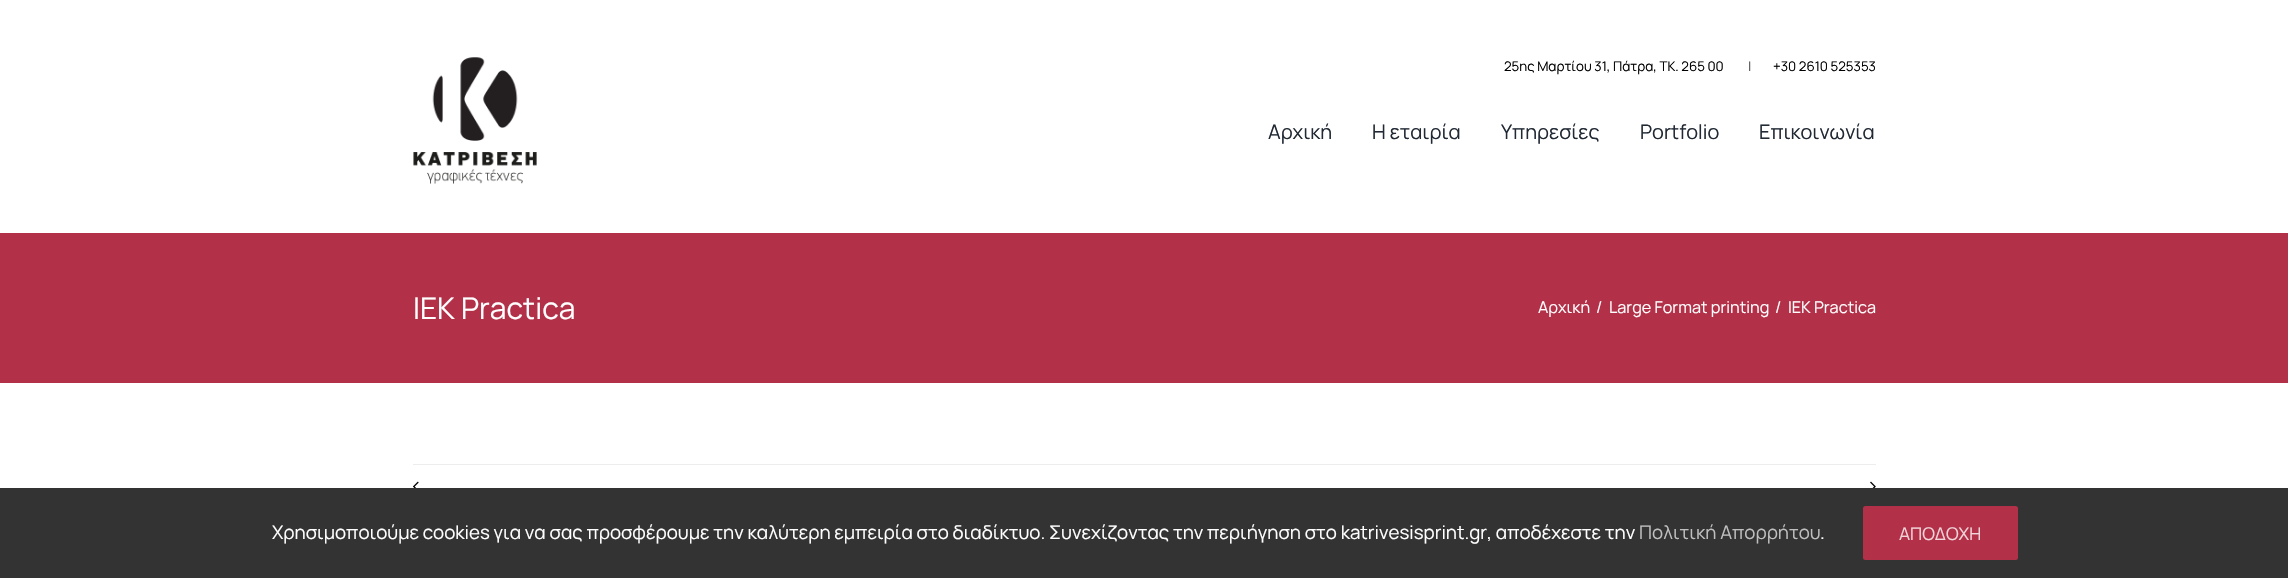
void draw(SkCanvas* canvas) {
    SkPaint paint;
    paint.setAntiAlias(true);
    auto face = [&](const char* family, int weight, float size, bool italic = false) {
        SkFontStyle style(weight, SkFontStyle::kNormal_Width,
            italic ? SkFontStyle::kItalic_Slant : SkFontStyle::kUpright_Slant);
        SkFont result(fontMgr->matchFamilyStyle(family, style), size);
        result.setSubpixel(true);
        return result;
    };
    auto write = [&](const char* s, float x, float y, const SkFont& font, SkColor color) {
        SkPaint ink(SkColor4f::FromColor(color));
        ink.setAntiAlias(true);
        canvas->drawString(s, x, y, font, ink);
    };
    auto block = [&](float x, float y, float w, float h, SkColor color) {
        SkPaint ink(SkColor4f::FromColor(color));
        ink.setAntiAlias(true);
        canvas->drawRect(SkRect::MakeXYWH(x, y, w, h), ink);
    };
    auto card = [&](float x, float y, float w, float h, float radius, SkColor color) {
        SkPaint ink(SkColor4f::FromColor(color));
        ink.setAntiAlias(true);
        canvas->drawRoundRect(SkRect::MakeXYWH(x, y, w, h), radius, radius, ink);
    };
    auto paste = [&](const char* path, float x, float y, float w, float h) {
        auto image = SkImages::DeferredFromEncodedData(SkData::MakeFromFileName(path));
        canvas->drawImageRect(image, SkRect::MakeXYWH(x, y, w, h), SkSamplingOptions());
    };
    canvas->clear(SK_ColorWHITE);
    paste("pic1.png", 413, 57, 124, 127);
    auto kFont1 = face("Manrope", 400, 13.3f);
    write("25ης Μαρτίου 31, Πάτρα, ΤΚ. 265 00", 1504, 71, kFont1, SK_ColorBLACK);
    write("|", 1748, 71, kFont1, SkColorSetRGB(76, 76, 76));
    write("+30 2610 525353", 1773, 71, kFont1, SK_ColorBLACK);
    auto kFont2 = face("Manrope", 400, 20);
    write("Αρχική", 1268, 139, kFont2, SkColorSetRGB(33, 41, 52));
    write("Η εταιρία", 1372, 139, kFont2, SkColorSetRGB(33, 41, 52));
    write("Υπηρεσίες", 1501, 139, kFont2, SkColorSetRGB(33, 41, 52));
    write("Portfolio", 1640, 139, kFont2, SkColorSetRGB(33, 41, 52));
    write("Επικοινωνία", 1759, 139, kFont2, SkColorSetRGB(33, 41, 52));
    block(0, 233, 2288, 150, SkColorSetRGB(178, 48, 72));
    auto kFont3 = face("Manrope", 400, 30);
    write("IEK Practica", 413, 319, kFont3, SK_ColorWHITE);
    auto kFont4 = face("Manrope", 400, 16.25f);
    write("Αρχική", 1538, 313, kFont4, SK_ColorWHITE);
    write("/", 1596, 313, kFont4, SK_ColorWHITE);
    write("Large Format printing", 1609, 313, kFont4, SK_ColorWHITE);
    write("/", 1775, 313, kFont4, SK_ColorWHITE);
    write("IEK Practica", 1788, 313, kFont4, SK_ColorWHITE);
    block(413, 464, 1463, 1, SkColorSetRGB(237, 237, 237));
    paste("pic2.png", 413, 481, 6, 7);
    paste("pic3.png", 1870, 481, 6, 7);
    block(0, 488, 2288, 90, SkColorSetRGB(51, 51, 51));
    auto kFont5 = face("Manrope", 400, 18.75f);
    write("Χρησιμοποιούμε cookies για να σας προσφέρουμε την καλύτερη εμπειρία στο διαδίκτυο. Συνεχίζοντας την περιήγηση στο katrivesisprint.gr, αποδέχεστε την", 272, 539, kFont5, SK_ColorWHITE);
    write("Πολιτική Απορρήτου", 1639, 539, kFont5, SkColorSetRGB(191, 191, 191));
    write(".", 1820, 539, kFont5, SK_ColorWHITE);
    card(1863, 506, 155, 54, 2.5f, SkColorSetRGB(178, 48, 72));
    auto kFont6 = face("Manrope", 400, 17.5f);
    write("ΑΠΟΔΟΧΗ", 1899, 540, kFont6, SkColorSetRGB(240, 214, 218));
}
